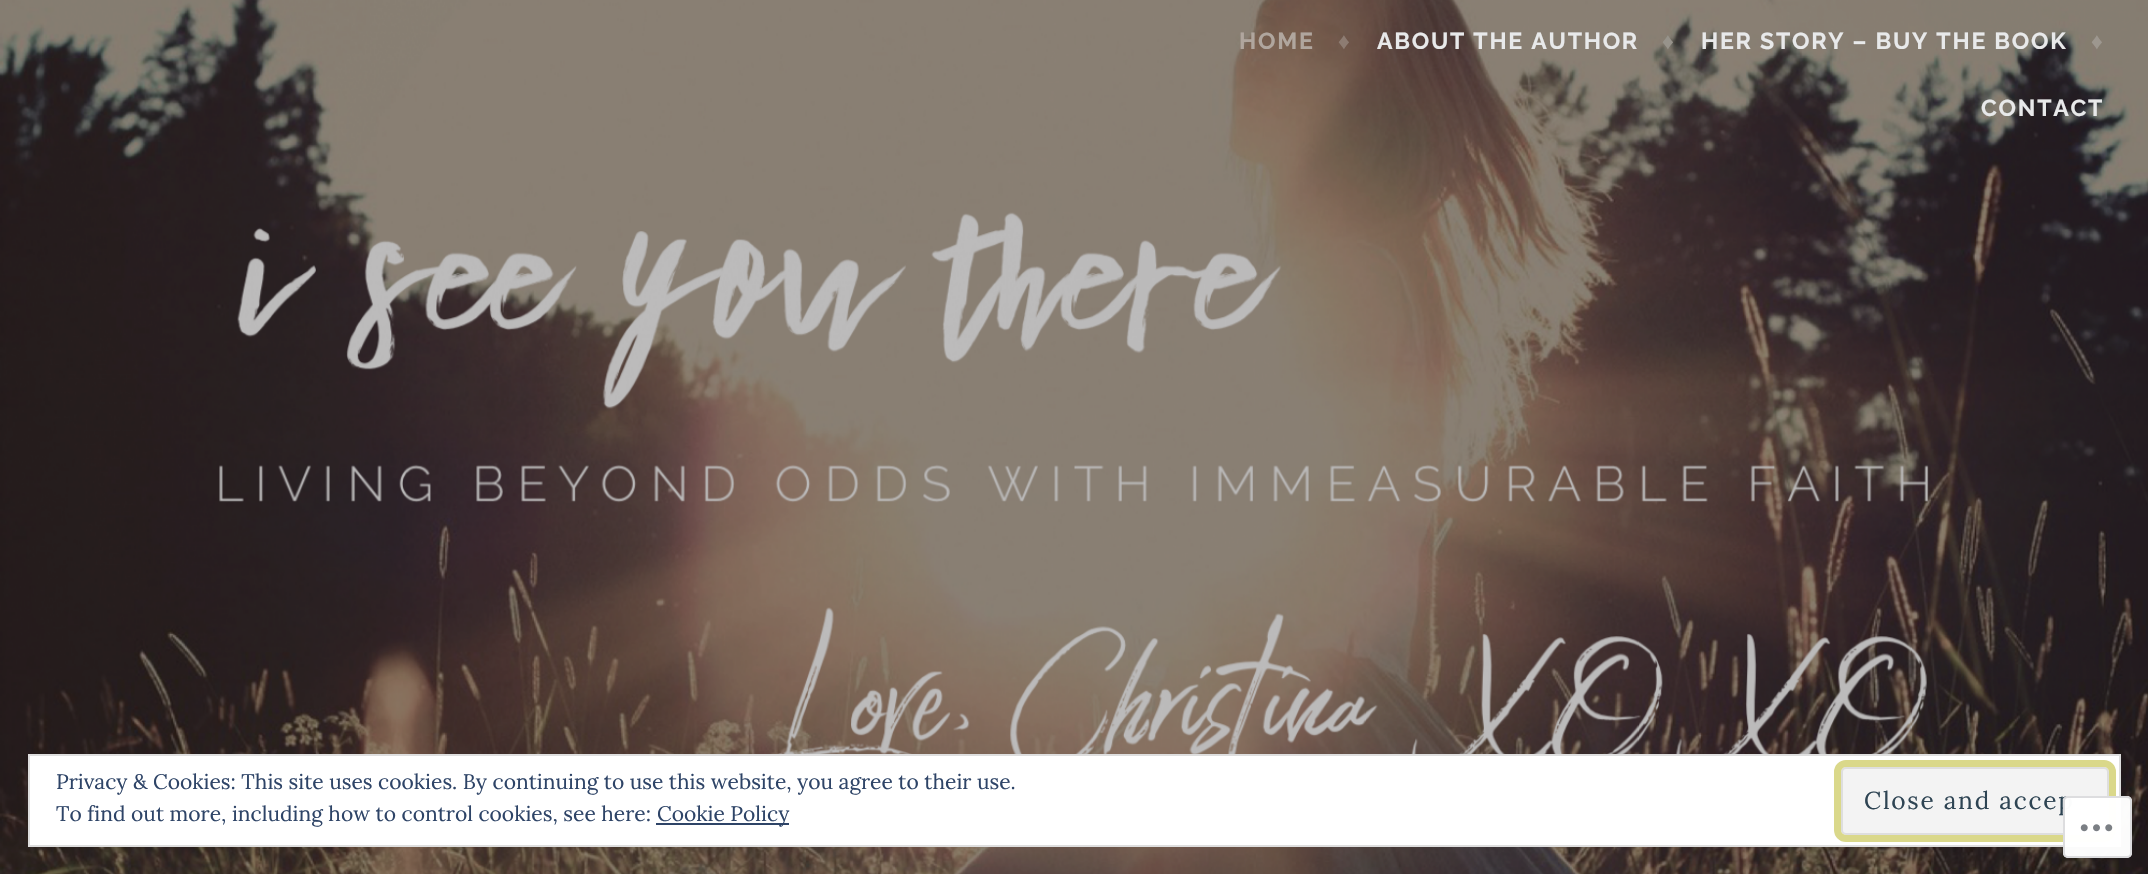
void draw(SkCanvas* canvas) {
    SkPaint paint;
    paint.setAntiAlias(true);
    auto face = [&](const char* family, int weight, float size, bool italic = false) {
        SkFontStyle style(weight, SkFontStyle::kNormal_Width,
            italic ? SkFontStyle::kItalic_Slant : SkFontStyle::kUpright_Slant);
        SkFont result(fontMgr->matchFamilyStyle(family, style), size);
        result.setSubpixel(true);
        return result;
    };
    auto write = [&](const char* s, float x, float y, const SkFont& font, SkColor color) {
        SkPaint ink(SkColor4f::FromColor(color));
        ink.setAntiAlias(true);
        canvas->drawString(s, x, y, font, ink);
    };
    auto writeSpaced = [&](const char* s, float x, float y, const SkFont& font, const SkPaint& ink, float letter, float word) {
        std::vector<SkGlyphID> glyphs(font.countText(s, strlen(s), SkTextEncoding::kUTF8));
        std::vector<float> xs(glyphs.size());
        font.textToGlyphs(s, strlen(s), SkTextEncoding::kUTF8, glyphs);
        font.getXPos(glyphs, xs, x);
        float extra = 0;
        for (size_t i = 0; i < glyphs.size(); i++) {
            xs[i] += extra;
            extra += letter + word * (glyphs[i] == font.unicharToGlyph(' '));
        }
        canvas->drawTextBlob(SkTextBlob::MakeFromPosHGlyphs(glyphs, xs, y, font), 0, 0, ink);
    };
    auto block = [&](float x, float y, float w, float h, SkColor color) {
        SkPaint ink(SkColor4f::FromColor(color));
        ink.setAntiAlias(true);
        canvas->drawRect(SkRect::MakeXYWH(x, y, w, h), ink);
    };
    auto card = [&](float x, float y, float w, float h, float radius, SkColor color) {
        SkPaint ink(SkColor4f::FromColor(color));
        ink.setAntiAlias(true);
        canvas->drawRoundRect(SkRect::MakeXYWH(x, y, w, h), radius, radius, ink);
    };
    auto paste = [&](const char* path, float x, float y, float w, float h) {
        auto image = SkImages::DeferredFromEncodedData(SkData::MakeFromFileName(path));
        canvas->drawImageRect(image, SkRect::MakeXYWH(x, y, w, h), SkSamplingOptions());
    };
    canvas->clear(SkColorSetRGB(30, 28, 27));
    paste("pic1.png", 0, 0, 2148, 874);
    auto kFont1 = face("Raleway", 700, 23.1f);
    paint.setColor(SkColorSetRGB(176, 166, 158));
    writeSpaced("HOME", 1239, 49, kFont1, paint, 1.75f, 0);
    auto kFont2 = face("Liberation Sans", 700, 23.1f);
    paint.setColor(SkColorSetRGB(141, 124, 114));
    writeSpaced("♦", 1338, 49, kFont2, paint, 1.75f, 0);
    paint.setColor(SkColorSetRGB(232, 233, 234));
    writeSpaced("ABOUT THE AUTHOR", 1377, 49, kFont1, paint, 1.75f, 0);
    paint.setColor(SkColorSetRGB(151, 147, 139));
    writeSpaced("♦", 1662, 49, kFont2, paint, 1.75f, 0);
    paint.setColor(SkColorSetRGB(232, 233, 234));
    writeSpaced("HER STORY – BUY THE BOOK", 1701, 49, kFont1, paint, 1.75f, 0);
    paint.setColor(SkColorSetRGB(157, 151, 143));
    writeSpaced("♦", 2091, 49, kFont2, paint, 1.75f, 0);
    paint.setColor(SkColorSetRGB(232, 233, 234));
    writeSpaced("CONTACT", 1981, 116, kFont1, paint, 1.75f, 0);
    paint.setColor(SK_ColorWHITE);
    canvas->drawRect(SkRect::MakeXYWH(29, 755, 2091, 91), paint);
    paint.setStyle(SkPaint::kStroke_Style);
    paint.setStrokeWidth(2);
    paint.setColor(SkColorSetRGB(222, 222, 222));
    canvas->drawRect(SkRect::MakeXYWH(29, 755, 2091, 91), paint);
    auto kFont3 = face("Lora", 400, 21);
    write("Privacy & Cookies: This site uses cookies. By continuing to use this website, you agree to their use.", 56, 789, kFont3, SkColorSetRGB(46, 68, 103));
    write("To find out more, including how to control cookies, see here:", 56, 821, kFont3, SkColorSetRGB(46, 68, 103));
    block(656, 823, 133, 2, SkColorSetRGB(46, 68, 103));
    write("Cookie Policy", 657, 821, kFont3, SkColorSetRGB(46, 68, 103));
    paint.setStyle(SkPaint::kFill_Style);
    paint.setColor(SkColorSetRGB(243, 243, 243));
    canvas->drawRoundRect(SkRect::MakeXYWH(1842, 768, 266, 66), 4, 4, paint);
    paint.setStyle(SkPaint::kStroke_Style);
    paint.setColor(SkColorSetRGB(222, 222, 222));
    canvas->drawRoundRect(SkRect::MakeXYWH(1842, 768, 266, 66), 4, 4, paint);
    paint.setStrokeWidth(7);
    paint.setColor(SkColorSetRGB(218, 216, 138));
    canvas->drawRoundRect(SkRect::MakeXYWH(1837.5f, 763.5f, 275, 75), 8.5f, 8.5f, paint);
    auto kFont4 = face("Lora", 400, 24.5f);
    paint.setStyle(SkPaint::kFill_Style);
    paint.setColor(SkColorSetRGB(46, 68, 83));
    writeSpaced("Close and accep", 1864, 809, kFont4, paint, 1.75f, 0);
    card(2063, 796, 69, 62, 5, SkColorSetARGB(250, 255, 255, 255));
    paint.setStyle(SkPaint::kStroke_Style);
    paint.setStrokeWidth(2);
    paint.setColor(SkColorSetARGB(250, 220, 220, 222));
    canvas->drawRoundRect(SkRect::MakeXYWH(2064, 797, 67, 60), 4, 4, paint);
    paste("pic2.png", 2080, 824, 33, 8);
}
